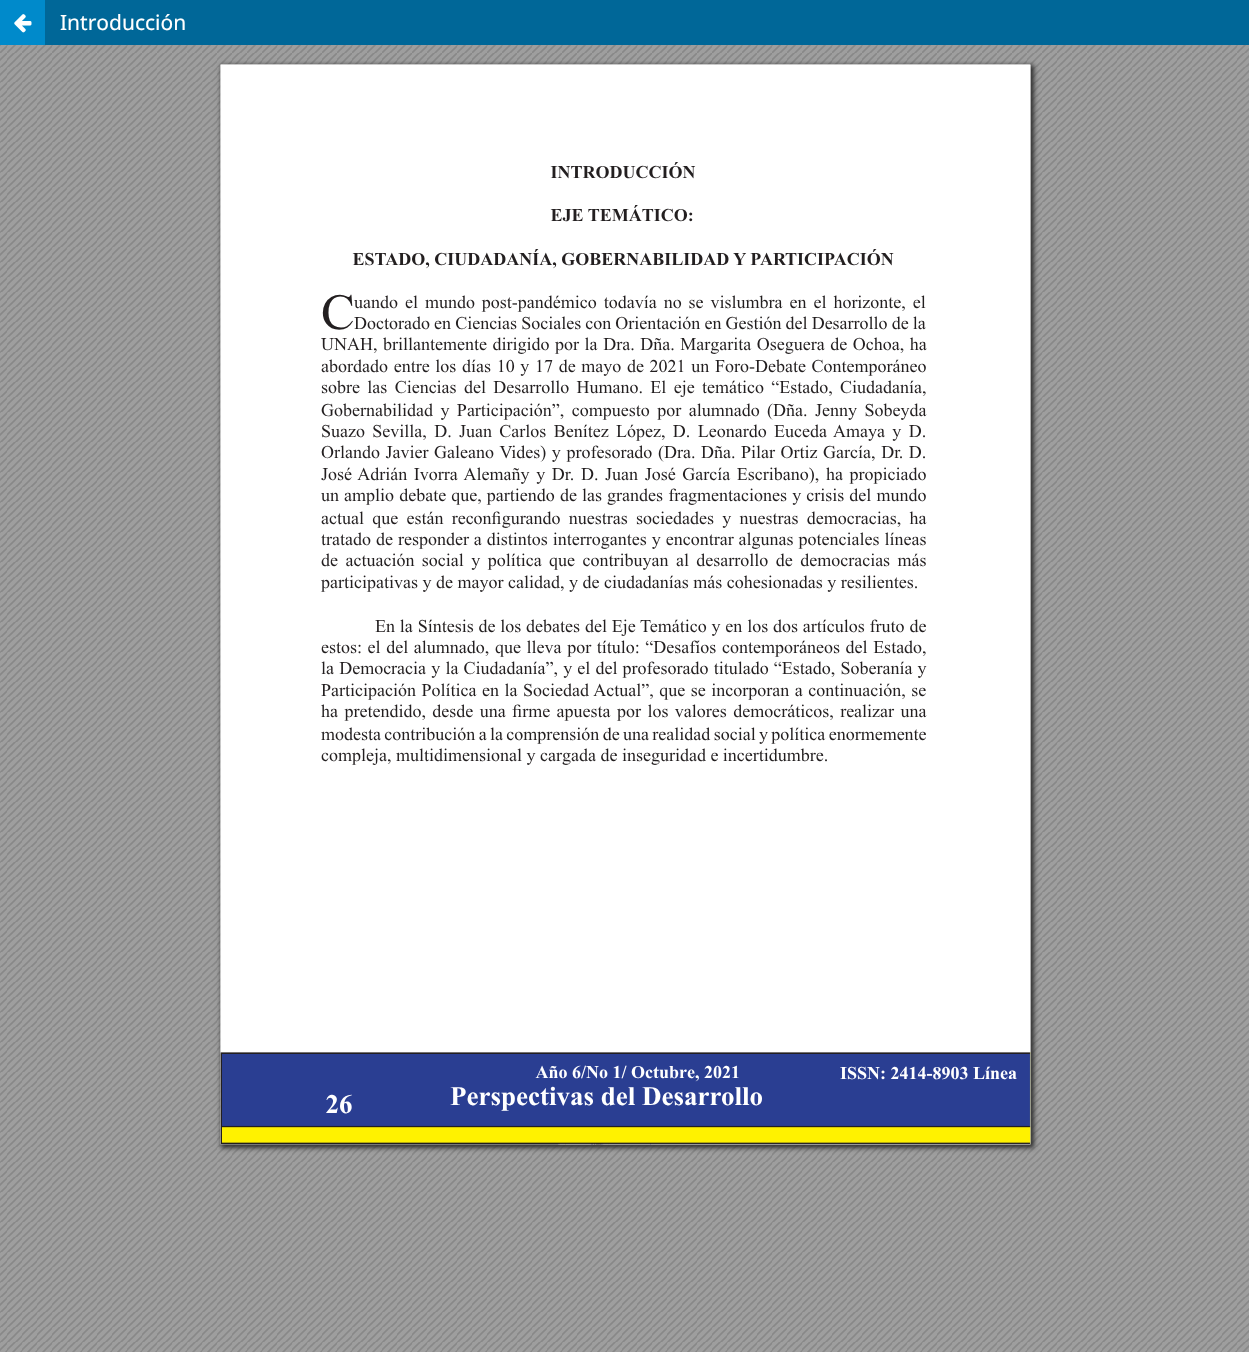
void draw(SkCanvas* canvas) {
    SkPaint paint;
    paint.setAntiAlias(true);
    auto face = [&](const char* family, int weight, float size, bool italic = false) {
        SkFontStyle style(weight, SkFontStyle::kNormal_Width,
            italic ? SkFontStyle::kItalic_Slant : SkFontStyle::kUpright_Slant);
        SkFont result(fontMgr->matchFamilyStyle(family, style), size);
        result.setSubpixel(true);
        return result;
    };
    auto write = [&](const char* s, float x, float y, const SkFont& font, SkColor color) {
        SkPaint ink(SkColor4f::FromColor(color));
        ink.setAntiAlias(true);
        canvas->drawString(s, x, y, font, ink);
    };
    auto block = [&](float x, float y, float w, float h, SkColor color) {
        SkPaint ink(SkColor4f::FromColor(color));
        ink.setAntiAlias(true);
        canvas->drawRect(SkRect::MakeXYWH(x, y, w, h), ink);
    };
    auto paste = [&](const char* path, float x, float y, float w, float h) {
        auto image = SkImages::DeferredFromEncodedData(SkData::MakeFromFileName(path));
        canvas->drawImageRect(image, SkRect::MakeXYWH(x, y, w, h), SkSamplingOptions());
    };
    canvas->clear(SK_ColorWHITE);
    block(45, 0, 1204, 45, SkColorSetRGB(0, 103, 152));
    block(0, 0, 45, 45, SkColorSetRGB(0, 138, 203));
    paste("pic1.png", 14, 14, 18, 19);
    auto kFont1 = face("Noto Sans", 400, 21);
    write("Introducción", 60, 30, kFont1, SK_ColorWHITE);
    paste("pic2.png", 0, 45, 1249, 1307);
}
